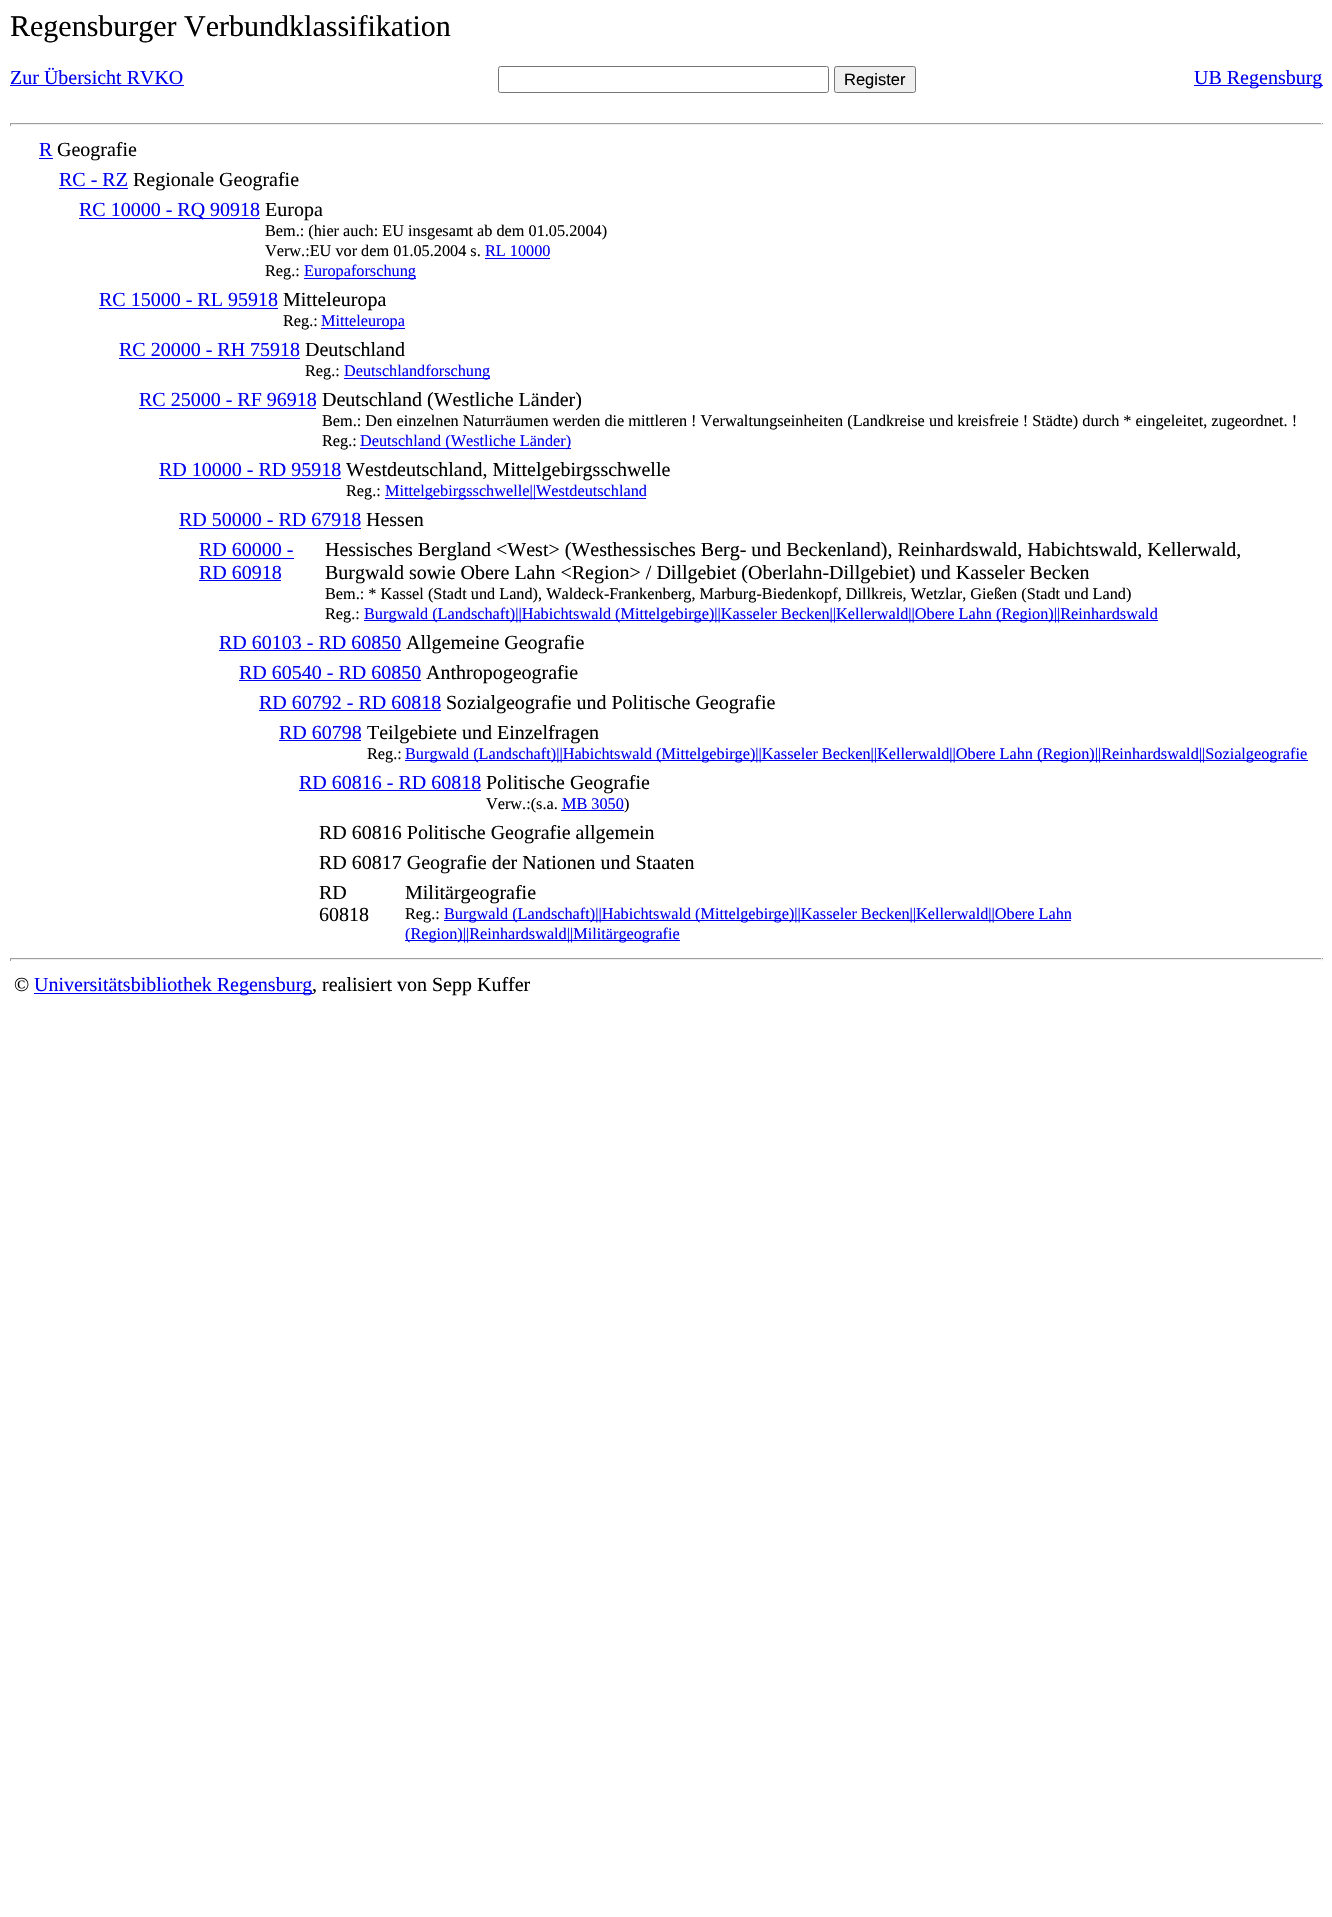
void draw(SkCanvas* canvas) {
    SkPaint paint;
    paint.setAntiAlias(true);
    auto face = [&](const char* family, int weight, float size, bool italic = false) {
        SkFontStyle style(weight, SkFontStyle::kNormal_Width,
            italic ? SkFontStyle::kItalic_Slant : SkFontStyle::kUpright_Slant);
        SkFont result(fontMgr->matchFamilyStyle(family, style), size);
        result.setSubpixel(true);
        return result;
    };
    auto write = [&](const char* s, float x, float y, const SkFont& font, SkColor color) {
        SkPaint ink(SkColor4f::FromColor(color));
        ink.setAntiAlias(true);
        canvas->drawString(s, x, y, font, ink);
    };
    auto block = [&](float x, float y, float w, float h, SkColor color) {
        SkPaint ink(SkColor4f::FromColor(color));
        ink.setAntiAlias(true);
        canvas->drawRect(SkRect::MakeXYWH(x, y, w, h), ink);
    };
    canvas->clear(SK_ColorWHITE);
    auto kFont1 = face("Liberation Serif", 400, 30);
    write("Regensburger Verbundklassifikation", 10, 36, kFont1, SK_ColorBLACK);
    auto kFont2 = face("Liberation Serif", 400, 20);
    write("Zur Übersicht RVKO", 10, 84, kFont2, SkColorSetRGB(0, 0, 238));
    block(10, 85, 174, 1, SkColorSetRGB(0, 0, 238));
    paint.setStyle(SkPaint::kStroke_Style);
    paint.setStrokeWidth(1);
    paint.setColor(SkColorSetRGB(118, 118, 118));
    canvas->drawRoundRect(SkRect::MakeXYWH(498.5f, 66.5f, 330, 26), 2, 2, paint);
    paint.setStyle(SkPaint::kFill_Style);
    paint.setColor(SkColorSetRGB(239, 239, 239));
    canvas->drawRoundRect(SkRect::MakeXYWH(834.5f, 66.5f, 81, 26), 2, 2, paint);
    paint.setStyle(SkPaint::kStroke_Style);
    paint.setColor(SkColorSetRGB(118, 118, 118));
    canvas->drawRoundRect(SkRect::MakeXYWH(834.5f, 66.5f, 81, 26), 2, 2, paint);
    auto kFont3 = face("Liberation Sans", 400, 16.5f);
    write("Register", 844, 85, kFont3, SK_ColorBLACK);
    block(1194, 85, 129, 1, SkColorSetRGB(0, 0, 238));
    write("UB Regensburg", 1194, 84, kFont2, SkColorSetRGB(0, 0, 238));
    block(10, 123, 1313, 1, SkColorSetRGB(159, 159, 159));
    block(1321, 123, 1, 3, SkColorSetRGB(238, 238, 238));
    block(10, 124, 1313, 1, SkColorSetRGB(238, 238, 238));
    block(10, 123, 1, 3, SkColorSetRGB(159, 159, 159));
    write("R", 39, 156, kFont2, SkColorSetRGB(0, 0, 238));
    block(39, 158, 14, 1, SkColorSetRGB(0, 0, 238));
    write("Geografie", 57, 156, kFont2, SK_ColorBLACK);
    write("RC - RZ", 59, 186, kFont2, SkColorSetRGB(0, 0, 238));
    block(59, 188, 69, 1, SkColorSetRGB(0, 0, 238));
    write("Regionale Geografie", 133, 186, kFont2, SK_ColorBLACK);
    block(79, 218, 181, 1, SkColorSetRGB(0, 0, 238));
    write("RC 10000 - RQ 90918", 79, 216, kFont2, SkColorSetRGB(0, 0, 238));
    write("Europa", 265, 216, kFont2, SK_ColorBLACK);
    auto kFont4 = face("Liberation Serif", 400, 16.25f);
    write("Bem.: (hier auch: EU insgesamt ab dem 01.05.2004)", 265, 236, kFont4, SK_ColorBLACK);
    write("Verw.:EU vor dem 01.05.2004 s.", 265, 256, kFont4, SK_ColorBLACK);
    write("RL 10000", 485, 256, kFont4, SkColorSetRGB(0, 0, 238));
    block(485, 258, 65, 1, SkColorSetRGB(0, 0, 238));
    write("Reg.:", 265, 276, kFont4, SK_ColorBLACK);
    block(304, 278, 112, 1, SkColorSetRGB(0, 0, 238));
    write("Europaforschung", 304, 276, kFont4, SkColorSetRGB(0, 0, 238));
    write("RC 15000 - RL 95918", 99, 306, kFont2, SkColorSetRGB(0, 0, 238));
    block(99, 308, 179, 1, SkColorSetRGB(0, 0, 238));
    write("Mitteleuropa", 283, 306, kFont2, SK_ColorBLACK);
    write("Reg.:", 283, 326, kFont4, SK_ColorBLACK);
    block(321, 328, 84, 1, SkColorSetRGB(0, 0, 238));
    write("Mitteleuropa", 321, 326, kFont4, SkColorSetRGB(0, 0, 238));
    write("RC 20000 - RH 75918", 119, 356, kFont2, SkColorSetRGB(0, 0, 238));
    block(119, 358, 181, 1, SkColorSetRGB(0, 0, 238));
    write("Deutschland", 305, 356, kFont2, SK_ColorBLACK);
    write("Reg.:", 305, 376, kFont4, SK_ColorBLACK);
    block(344, 378, 146, 1, SkColorSetRGB(0, 0, 238));
    write("Deutschlandforschung", 344, 376, kFont4, SkColorSetRGB(0, 0, 238));
    write("RC 25000 - RF 96918", 139, 406, kFont2, SkColorSetRGB(0, 0, 238));
    block(139, 408, 177, 1, SkColorSetRGB(0, 0, 238));
    write("Deutschland (Westliche Länder)", 322, 406, kFont2, SK_ColorBLACK);
    write("Bem.: Den einzelnen Naturräumen werden die mittleren ! Verwaltungseinheiten (Landkreise und kreisfreie ! Städte) durch * eingeleitet, zugeordnet. !", 322, 426, kFont4, SK_ColorBLACK);
    write("Reg.:", 322, 446, kFont4, SK_ColorBLACK);
    block(360, 448, 211, 1, SkColorSetRGB(0, 0, 238));
    write("Deutschland (Westliche Länder)", 360, 446, kFont4, SkColorSetRGB(0, 0, 238));
    write("RD 10000 - RD 95918", 159, 476, kFont2, SkColorSetRGB(0, 0, 238));
    block(159, 478, 182, 1, SkColorSetRGB(0, 0, 238));
    write("Westdeutschland, Mittelgebirgsschwelle", 346, 476, kFont2, SK_ColorBLACK);
    write("Reg.:", 346, 496, kFont4, SK_ColorBLACK);
    block(385, 498, 261, 1, SkColorSetRGB(0, 0, 238));
    write("Mittelgebirgsschwelle||Westdeutschland", 385, 496, kFont4, SkColorSetRGB(0, 0, 238));
    write("RD 50000 - RD 67918", 179, 526, kFont2, SkColorSetRGB(0, 0, 238));
    block(179, 528, 182, 1, SkColorSetRGB(0, 0, 238));
    write("Hessen", 366, 526, kFont2, SK_ColorBLACK);
    write("RD 60000 -", 199, 556, kFont2, SkColorSetRGB(0, 0, 238));
    block(199, 558, 95, 1, SkColorSetRGB(0, 0, 238));
    write("RD 60918", 199, 579, kFont2, SkColorSetRGB(0, 0, 238));
    block(199, 580, 82, 1, SkColorSetRGB(0, 0, 238));
    write("Hessisches Bergland <West> (Westhessisches Berg- und Beckenland), Reinhardswald, Habichtswald, Kellerwald,", 325, 556, kFont2, SK_ColorBLACK);
    write("Burgwald sowie Obere Lahn <Region> / Dillgebiet (Oberlahn-Dillgebiet) und Kasseler Becken", 325, 579, kFont2, SK_ColorBLACK);
    write("Bem.: * Kassel (Stadt und Land), Waldeck-Frankenberg, Marburg-Biedenkopf, Dillkreis, Wetzlar, Gießen (Stadt und Land)", 325, 599, kFont4, SK_ColorBLACK);
    write("Reg.:", 325, 619, kFont4, SK_ColorBLACK);
    block(364, 620, 794, 1, SkColorSetRGB(0, 0, 238));
    write("Burgwald (Landschaft)||Habichtswald (Mittelgebirge)||Kasseler Becken||Kellerwald||Obere Lahn (Region)||Reinhardswald", 364, 619, kFont4, SkColorSetRGB(0, 0, 238));
    write("RD 60103 - RD 60850", 219, 649, kFont2, SkColorSetRGB(0, 0, 238));
    block(219, 650, 182, 1, SkColorSetRGB(0, 0, 238));
    write("Allgemeine Geografie", 406, 649, kFont2, SK_ColorBLACK);
    write("RD 60540 - RD 60850", 239, 679, kFont2, SkColorSetRGB(0, 0, 238));
    block(239, 680, 182, 1, SkColorSetRGB(0, 0, 238));
    write("Anthropogeografie", 426, 679, kFont2, SK_ColorBLACK);
    write("RD 60792 - RD 60818", 259, 709, kFont2, SkColorSetRGB(0, 0, 238));
    block(259, 710, 182, 1, SkColorSetRGB(0, 0, 238));
    write("Sozialgeografie und Politische Geografie", 446, 709, kFont2, SK_ColorBLACK);
    write("RD 60798", 279, 739, kFont2, SkColorSetRGB(0, 0, 238));
    block(279, 740, 82, 1, SkColorSetRGB(0, 0, 238));
    write("Teilgebiete und Einzelfragen", 367, 739, kFont2, SK_ColorBLACK);
    write("Reg.:", 367, 759, kFont4, SK_ColorBLACK);
    block(405, 760, 903, 1, SkColorSetRGB(0, 0, 238));
    write("Burgwald (Landschaft)||Habichtswald (Mittelgebirge)||Kasseler Becken||Kellerwald||Obere Lahn (Region)||Reinhardswald||Sozialgeografie", 405, 759, kFont4, SkColorSetRGB(0, 0, 238));
    write("RD 60816 - RD 60818", 299, 789, kFont2, SkColorSetRGB(0, 0, 238));
    block(299, 790, 182, 1, SkColorSetRGB(0, 0, 238));
    write("Politische Geografie", 486, 789, kFont2, SK_ColorBLACK);
    write("Verw.:(s.a.", 486, 809, kFont4, SK_ColorBLACK);
    write("MB 3050", 562, 809, kFont4, SkColorSetRGB(0, 0, 238));
    write(")", 624, 809, kFont4, SK_ColorBLACK);
    block(561, 810, 63, 1, SkColorSetRGB(0, 0, 238));
    write("RD 60816 Politische Geografie allgemein", 319, 839, kFont2, SK_ColorBLACK);
    write("RD 60817 Geografie der Nationen und Staaten", 319, 869, kFont2, SK_ColorBLACK);
    write("RD", 319, 899, kFont2, SK_ColorBLACK);
    write("60818", 319, 921, kFont2, SK_ColorBLACK);
    write("Militärgeografie", 405, 899, kFont2, SK_ColorBLACK);
    write("Reg.:", 405, 919, kFont4, SK_ColorBLACK);
    block(444, 920, 627, 1, SkColorSetRGB(0, 0, 238));
    write("Burgwald (Landschaft)||Habichtswald (Mittelgebirge)||Kasseler Becken||Kellerwald||Obere Lahn", 444, 919, kFont4, SkColorSetRGB(0, 0, 238));
    block(405, 940, 275, 1, SkColorSetRGB(0, 0, 238));
    write("(Region)||Reinhardswald||Militärgeografie", 405, 939, kFont4, SkColorSetRGB(0, 0, 238));
    block(10, 958, 1313, 1, SkColorSetRGB(159, 159, 159));
    block(1321, 958, 1, 3, SkColorSetRGB(238, 238, 238));
    block(10, 959, 1313, 1, SkColorSetRGB(238, 238, 238));
    block(10, 958, 1, 3, SkColorSetRGB(159, 159, 159));
    write("©", 14, 991, kFont2, SK_ColorBLACK);
    block(34, 993, 279, 1, SkColorSetRGB(0, 0, 238));
    write("Universitätsbibliothek Regensburg", 34, 991, kFont2, SkColorSetRGB(0, 0, 238));
    write(", realisiert von Sepp Kuffer", 312, 991, kFont2, SK_ColorBLACK);
}
